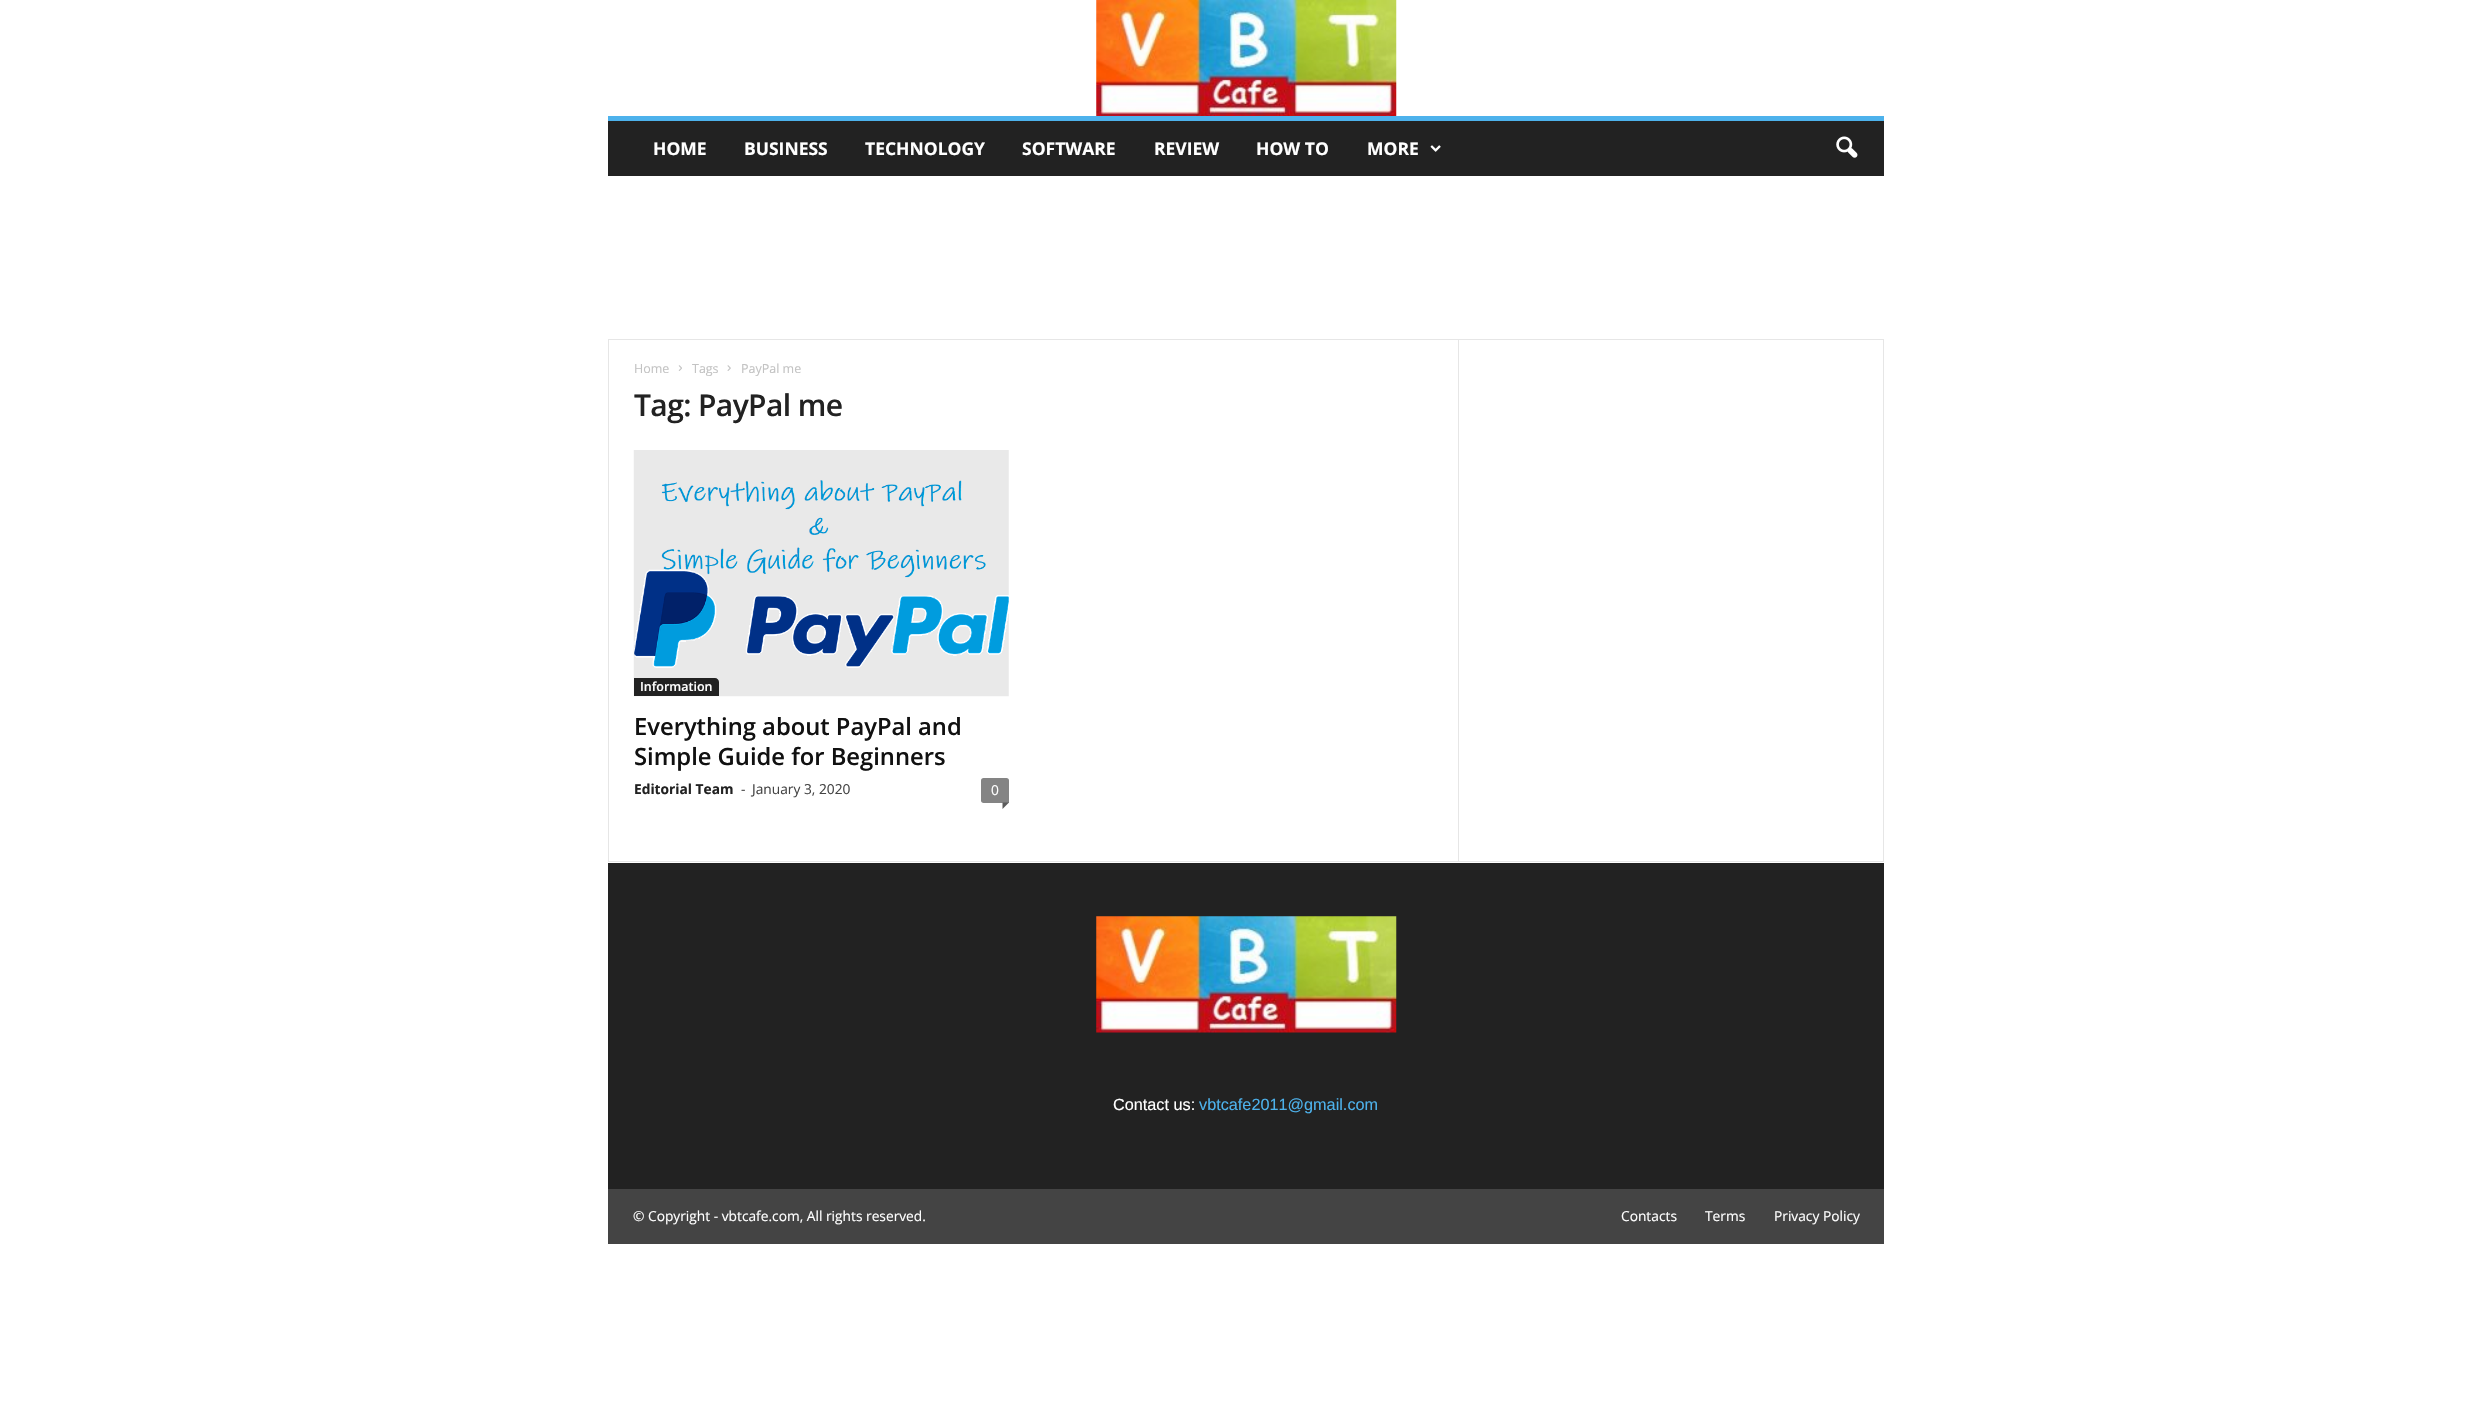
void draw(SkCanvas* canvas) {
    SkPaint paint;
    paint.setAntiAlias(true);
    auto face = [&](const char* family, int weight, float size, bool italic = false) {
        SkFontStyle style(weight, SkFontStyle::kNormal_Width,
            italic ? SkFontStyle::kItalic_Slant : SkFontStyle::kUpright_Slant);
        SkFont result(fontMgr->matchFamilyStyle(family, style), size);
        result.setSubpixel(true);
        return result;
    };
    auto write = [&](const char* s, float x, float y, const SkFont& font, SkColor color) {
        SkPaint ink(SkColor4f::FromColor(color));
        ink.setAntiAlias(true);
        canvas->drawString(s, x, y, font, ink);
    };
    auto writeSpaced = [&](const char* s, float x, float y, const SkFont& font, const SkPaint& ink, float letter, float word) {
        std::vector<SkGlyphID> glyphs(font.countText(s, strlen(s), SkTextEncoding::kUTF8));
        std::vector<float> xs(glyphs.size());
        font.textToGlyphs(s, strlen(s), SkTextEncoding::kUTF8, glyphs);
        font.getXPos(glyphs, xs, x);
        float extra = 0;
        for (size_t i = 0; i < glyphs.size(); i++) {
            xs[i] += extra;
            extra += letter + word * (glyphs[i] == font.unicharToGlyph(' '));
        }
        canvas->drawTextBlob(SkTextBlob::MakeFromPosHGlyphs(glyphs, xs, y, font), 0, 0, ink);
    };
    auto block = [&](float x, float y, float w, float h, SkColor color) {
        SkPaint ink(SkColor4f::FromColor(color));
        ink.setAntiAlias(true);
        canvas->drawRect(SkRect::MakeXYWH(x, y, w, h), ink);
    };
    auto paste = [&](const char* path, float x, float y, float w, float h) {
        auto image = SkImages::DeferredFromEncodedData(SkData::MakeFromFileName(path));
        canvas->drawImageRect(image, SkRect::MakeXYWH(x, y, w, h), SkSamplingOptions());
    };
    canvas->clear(SK_ColorWHITE);
    paste("pic1.png", 1096, 0, 301, 116);
    block(608, 121, 1276, 55, SkColorSetRGB(34, 34, 34));
    block(608, 116, 1276, 5, SkColorSetRGB(77, 178, 236));
    auto kFont1 = face("Open Sans", 700, 17.5f);
    write("HOME", 653, 155, kFont1, SK_ColorWHITE);
    write("BUSINESS", 744, 155, kFont1, SK_ColorWHITE);
    write("TECHNOLOGY", 865, 155, kFont1, SK_ColorWHITE);
    write("SOFTWARE", 1022, 155, kFont1, SK_ColorWHITE);
    write("REVIEW", 1154, 155, kFont1, SK_ColorWHITE);
    write("HOW TO", 1256, 155, kFont1, SK_ColorWHITE);
    write("MORE", 1367, 155, kFont1, SK_ColorWHITE);
    paste("pic2.png", 1430, 145, 11, 7);
    paste("pic3.png", 1836, 136, 22, 22);
    block(608, 339, 1276, 1, SkColorSetRGB(230, 230, 230));
    block(608, 861, 1276, 1, SkColorSetRGB(230, 230, 230));
    block(608, 340, 1, 521, SkColorSetRGB(230, 230, 230));
    auto kFont2 = face("Open Sans", 400, 12.5f);
    write("Home", 634, 373, kFont2, SkColorSetRGB(195, 195, 195));
    paste("pic4.png", 678, 365, 4, 6);
    write("Tags", 692, 373, kFont2, SkColorSetRGB(195, 195, 195));
    paste("pic5.png", 727, 365, 4, 6);
    write("PayPal me", 741, 373, kFont2, SkColorSetRGB(195, 195, 195));
    auto kFont3 = face("Open Sans", 600, 30);
    paint.setColor(SkColorSetRGB(34, 34, 34));
    writeSpaced("Tag: PayPal me", 634, 416, kFont3, paint, -0.6f, 0);
    paste("pic6.png", 633, 450, 376, 247);
    canvas->drawPath(SkPathBuilder().moveTo(634, 678).lineTo(715, 678).cubicTo(717, 678, 719, 680, 719, 682).lineTo(719, 696).lineTo(634, 696).close().detach(), paint);
    auto kFont4 = face("Open Sans", 600, 12.5f);
    write("Information", 640, 691, kFont4, SK_ColorWHITE);
    auto kFont5 = face("Open Sans", 600, 23.75f);
    write("Everything about PayPal and", 634, 735, kFont5, SkColorSetRGB(17, 17, 17));
    write("Simple Guide for Beginners", 634, 765, kFont5, SkColorSetRGB(17, 17, 17));
    auto kFont6 = face("Open Sans", 700, 13.75f);
    write("Editorial Team", 634, 794, kFont6, SkColorSetRGB(34, 34, 34));
    auto kFont7 = face("Open Sans", 400, 13.75f);
    write("-", 741, 794, kFont7, SkColorSetRGB(68, 68, 68));
    write("January 3, 2020", 752, 794, kFont7, SkColorSetRGB(68, 68, 68));
    paint.setColor(SkColorSetRGB(132, 132, 132));
    canvas->drawPath(SkPathBuilder().moveTo(983.5f, 778).lineTo(1006.5f, 778).cubicTo(1008, 778, 1009, 779, 1009, 780.5f).lineTo(1009, 803).lineTo(983.5f, 803).cubicTo(982, 803, 981, 802, 981, 800.5f).lineTo(981, 780.5f).cubicTo(981, 779, 982, 778, 983.5f, 778).close().detach(), paint);
    write("0", 991, 795, kFont7, SK_ColorWHITE);
    paint.setColor(SkColorSetRGB(91, 91, 91));
    canvas->drawPath(SkPathBuilder().moveTo(1002.5f, 802.5f).lineTo(1009, 802.5f).lineTo(1002.5f, 809).close().detach(), paint);
    block(1458, 340, 1, 521, SkColorSetRGB(230, 230, 230));
    block(1883, 340, 1, 521, SkColorSetRGB(230, 230, 230));
    block(608, 863, 1276, 326, SkColorSetRGB(34, 34, 34));
    paste("pic7.png", 1096, 916, 301, 117);
    auto kFont8 = face("Liberation Sans", 400, 16.25f);
    write("Contact us:", 1113, 1110, kFont8, SK_ColorWHITE);
    write("vbtcafe2011@gmail.com", 1199, 1110, kFont8, SkColorSetRGB(77, 178, 236));
    block(608, 1189, 1276, 55, SkColorSetRGB(68, 68, 68));
    write("© Copyright - vbtcafe.com, All rights reserved.", 633, 1221, kFont7, SK_ColorWHITE);
    write("Contacts", 1621, 1221, kFont7, SK_ColorWHITE);
    write("Terms", 1705, 1221, kFont7, SK_ColorWHITE);
    write("Privacy Policy", 1774, 1221, kFont7, SK_ColorWHITE);
}
